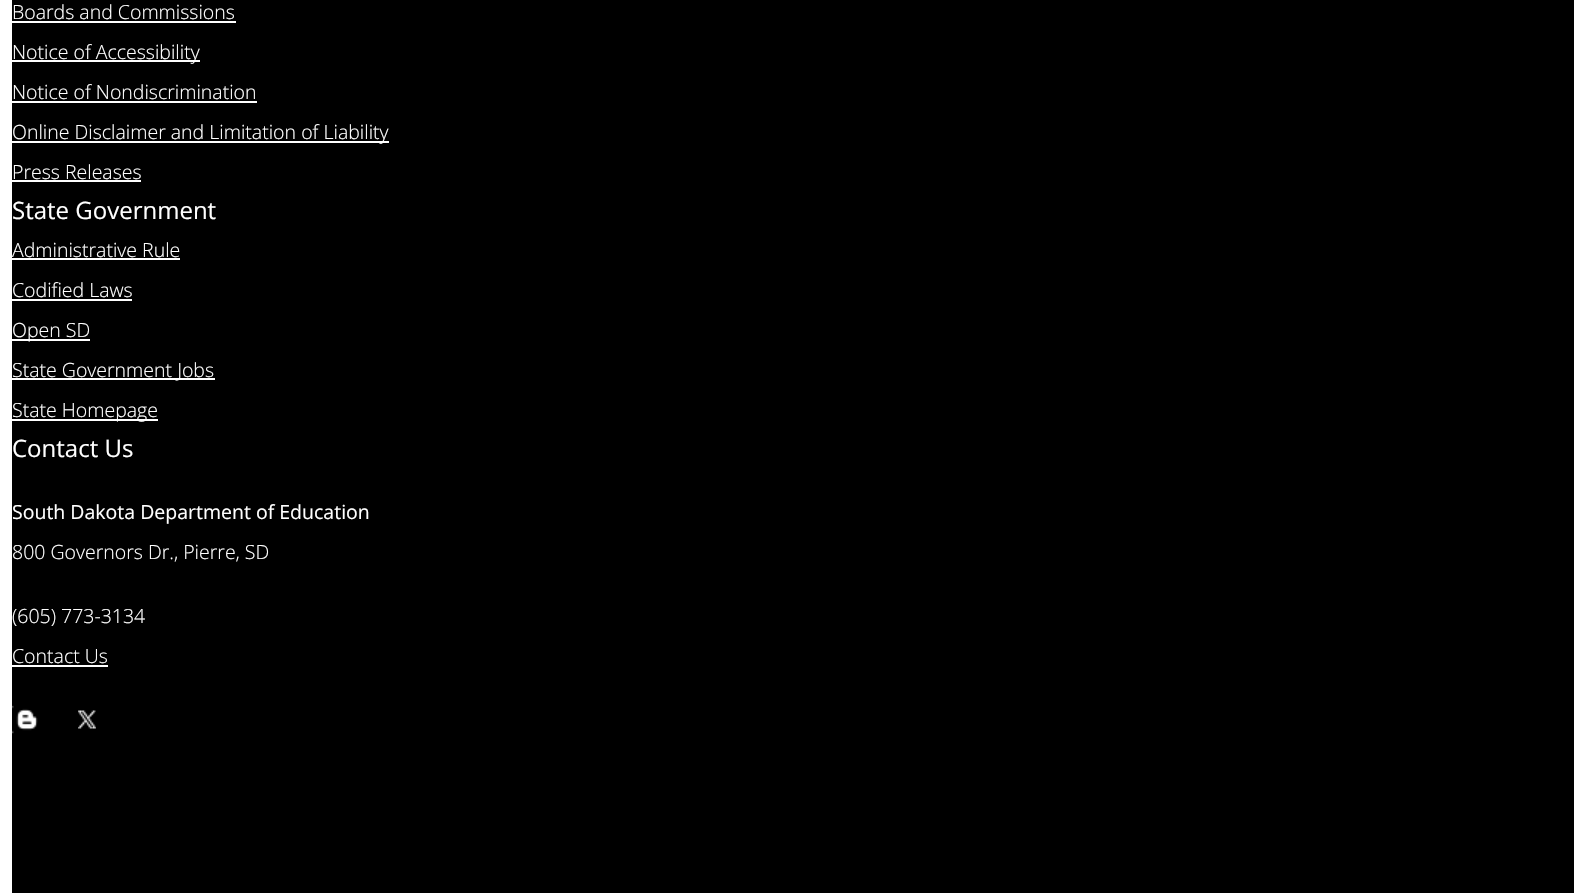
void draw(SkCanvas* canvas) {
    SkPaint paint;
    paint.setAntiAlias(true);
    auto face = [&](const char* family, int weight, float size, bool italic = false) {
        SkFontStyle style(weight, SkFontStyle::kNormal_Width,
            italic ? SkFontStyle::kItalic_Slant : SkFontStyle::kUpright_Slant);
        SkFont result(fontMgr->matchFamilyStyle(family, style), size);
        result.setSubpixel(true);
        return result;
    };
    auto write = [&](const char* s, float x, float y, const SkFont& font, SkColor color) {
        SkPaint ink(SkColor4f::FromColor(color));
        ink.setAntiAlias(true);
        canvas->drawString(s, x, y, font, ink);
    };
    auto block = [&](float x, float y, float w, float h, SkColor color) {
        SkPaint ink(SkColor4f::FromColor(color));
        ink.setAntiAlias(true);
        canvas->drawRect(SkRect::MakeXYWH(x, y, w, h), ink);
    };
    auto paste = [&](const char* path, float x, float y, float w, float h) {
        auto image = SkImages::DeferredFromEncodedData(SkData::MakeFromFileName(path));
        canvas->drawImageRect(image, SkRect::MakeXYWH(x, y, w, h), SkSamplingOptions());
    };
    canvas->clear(SK_ColorWHITE);
    block(12, 0, 1562, 893, SK_ColorBLACK);
    auto kFont1 = face("Open Sans", 300, 19.5f);
    write("Boards and Commissions", 12, 19, kFont1, SK_ColorWHITE);
    block(12, 21, 224, 2, SK_ColorWHITE);
    block(12, 60, 188, 2, SK_ColorWHITE);
    write("Notice of Accessibility", 12, 59, kFont1, SK_ColorWHITE);
    write("Notice of Nondiscrimination", 12, 99, kFont1, SK_ColorWHITE);
    block(12, 101, 245, 2, SK_ColorWHITE);
    block(12, 141, 377, 2, SK_ColorWHITE);
    write("Online Disclaimer and Limitation of Liability", 12, 139, kFont1, SK_ColorWHITE);
    write("Press Releases", 12, 179, kFont1, SK_ColorWHITE);
    block(12, 180, 129, 2, SK_ColorWHITE);
    auto kFont2 = face("Open Sans", 400, 24);
    write("State Government", 12, 219, kFont2, SK_ColorWHITE);
    write("Administrative Rule", 12, 257, kFont1, SK_ColorWHITE);
    block(12, 258, 168, 2, SK_ColorWHITE);
    write("Codified Laws", 12, 297, kFont1, SK_ColorWHITE);
    block(12, 299, 120, 2, SK_ColorWHITE);
    block(12, 339, 78, 2, SK_ColorWHITE);
    write("Open SD", 12, 337, kFont1, SK_ColorWHITE);
    block(12, 378, 203, 2, SK_ColorWHITE);
    write("State Government Jobs", 12, 377, kFont1, SK_ColorWHITE);
    block(12, 419, 146, 2, SK_ColorWHITE);
    write("State Homepage", 12, 417, kFont1, SK_ColorWHITE);
    write("Contact Us", 12, 457, kFont2, SK_ColorWHITE);
    auto kFont3 = face("Open Sans", 400, 19.5f);
    write("South Dakota Department of Education", 12, 519, kFont3, SK_ColorWHITE);
    write("800 Governors Dr., Pierre, SD", 12, 559, kFont1, SK_ColorWHITE);
    write("(605) 773-3134", 12, 623, kFont1, SK_ColorWHITE);
    write("Contact Us", 12, 663, kFont1, SK_ColorWHITE);
    block(12, 665, 96, 2, SK_ColorWHITE);
    paste("pic1.png", 12, 705, 26, 29);
    paste("pic2.png", 78, 710, 18, 19);
}
